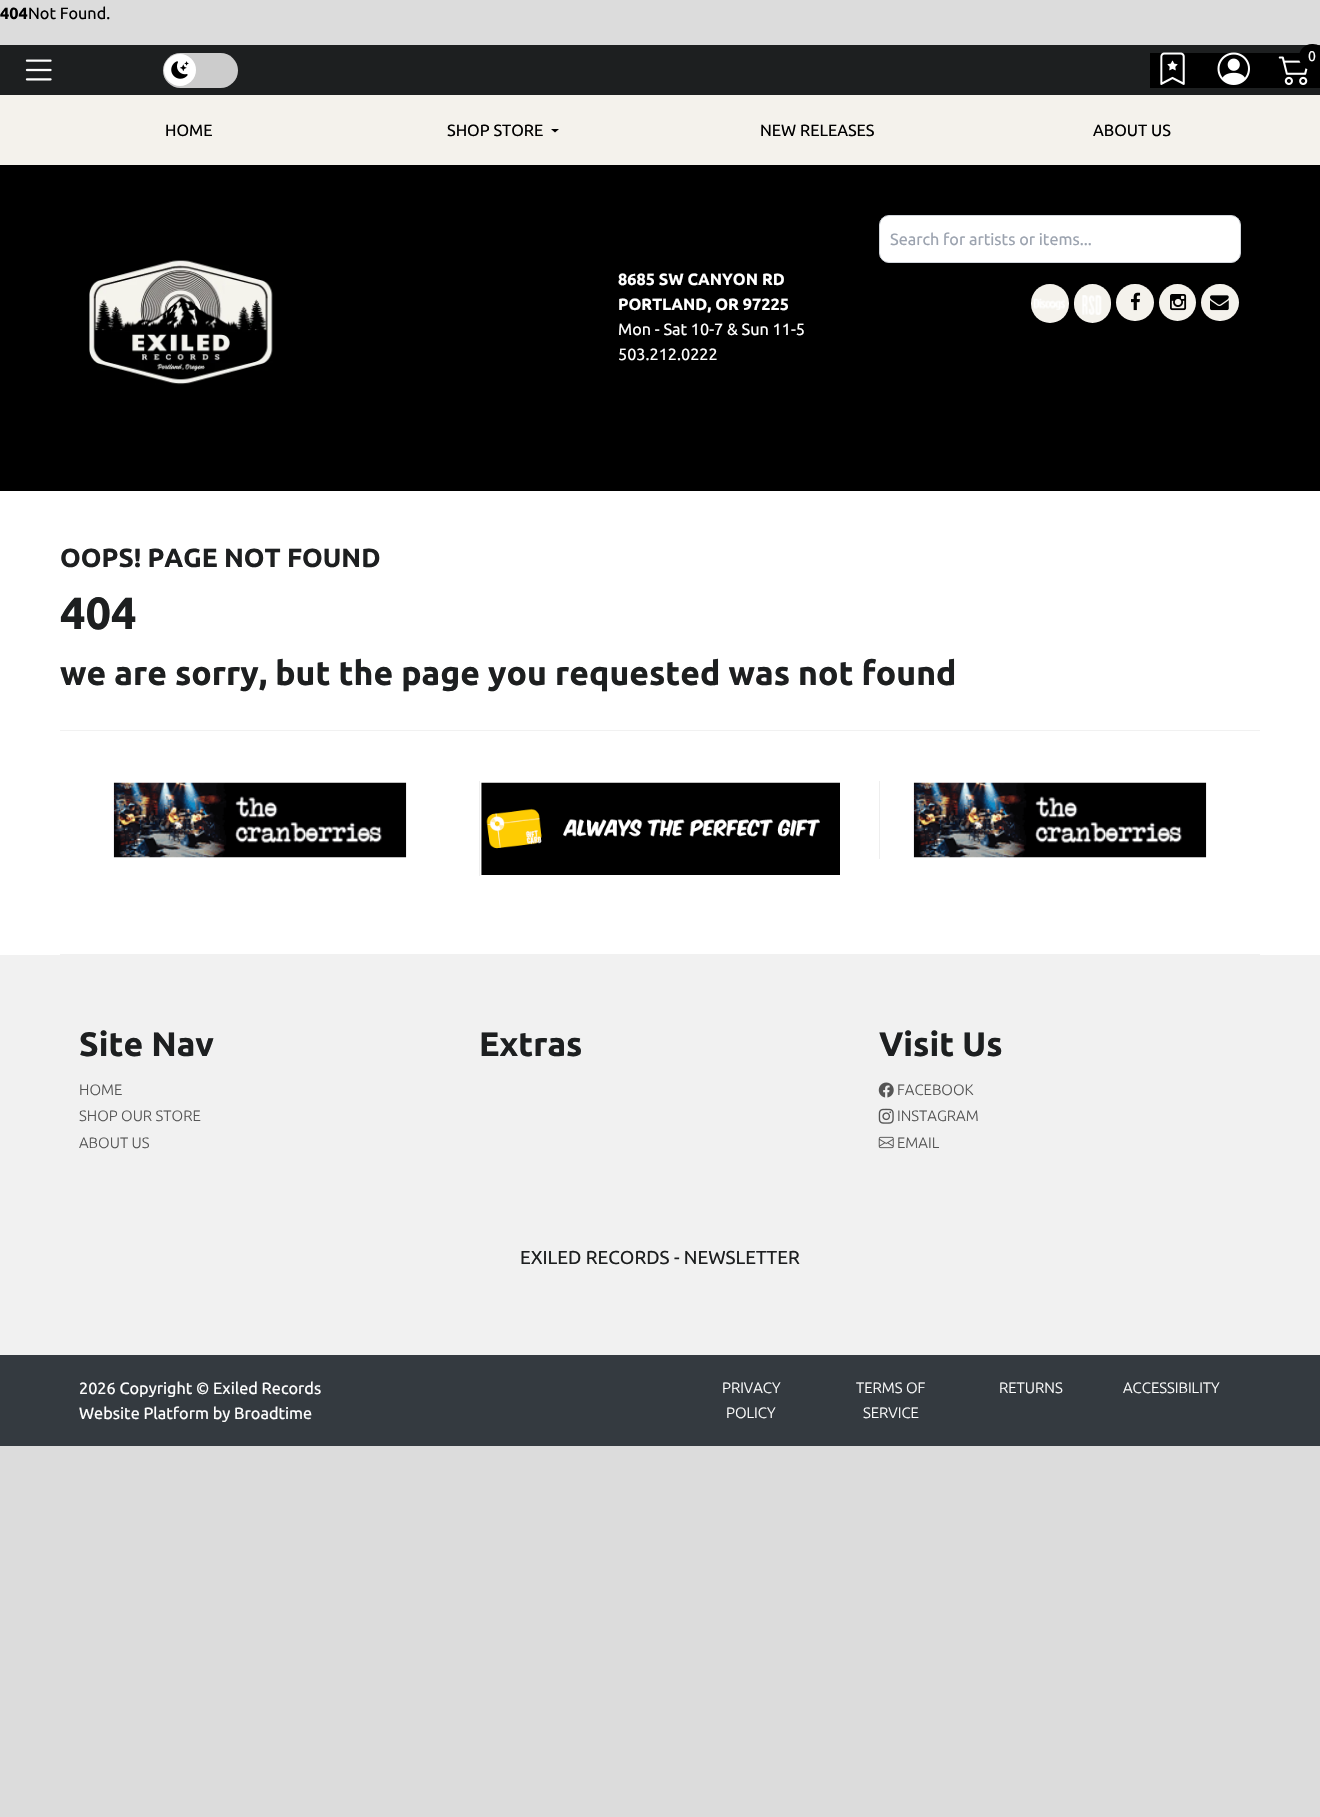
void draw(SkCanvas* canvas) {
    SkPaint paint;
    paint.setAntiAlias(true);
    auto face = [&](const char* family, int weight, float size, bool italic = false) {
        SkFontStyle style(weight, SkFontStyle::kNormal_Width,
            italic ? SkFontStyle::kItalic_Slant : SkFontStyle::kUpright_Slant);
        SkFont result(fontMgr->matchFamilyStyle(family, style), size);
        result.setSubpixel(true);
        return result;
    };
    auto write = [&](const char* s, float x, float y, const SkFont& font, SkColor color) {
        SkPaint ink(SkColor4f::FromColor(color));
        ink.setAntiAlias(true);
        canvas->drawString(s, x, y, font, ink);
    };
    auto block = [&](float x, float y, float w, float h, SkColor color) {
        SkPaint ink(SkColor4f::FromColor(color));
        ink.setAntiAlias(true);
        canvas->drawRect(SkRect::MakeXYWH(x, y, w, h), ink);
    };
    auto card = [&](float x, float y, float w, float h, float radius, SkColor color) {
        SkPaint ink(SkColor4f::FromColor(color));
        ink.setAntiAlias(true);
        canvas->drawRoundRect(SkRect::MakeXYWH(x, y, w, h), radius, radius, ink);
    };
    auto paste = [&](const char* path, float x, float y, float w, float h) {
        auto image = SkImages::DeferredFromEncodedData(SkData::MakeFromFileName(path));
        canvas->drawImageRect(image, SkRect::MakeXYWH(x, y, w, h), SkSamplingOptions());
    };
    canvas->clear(SkColorSetRGB(220, 220, 220));
    auto kFont1 = face("Ubuntu", 700, 16.25f);
    write("404", 0, 19, kFont1, SK_ColorBLACK);
    auto kFont2 = face("Ubuntu", 400, 16.25f);
    write("Not Found.", 28, 19, kFont2, SK_ColorBLACK);
    block(0, 491, 1320, 464, SK_ColorWHITE);
    block(0, 45, 1320, 50, SkColorSetRGB(29, 31, 32));
    paste("pic1.png", 25, 59, 27, 22);
    card(163, 53, 75, 35, 17.5f, SkColorSetRGB(204, 204, 204));
    paint.setColor(SK_ColorWHITE);
    canvas->drawCircle(180, 70, 16, paint);
    paste("pic2.png", 171, 61, 18, 18);
    block(1150, 53, 170, 35, SK_ColorBLACK);
    paste("pic3.png", 1160, 52, 25, 33);
    paste("pic4.png", 1217, 52, 33, 33);
    paste("pic5.png", 1278, 56, 30, 29);
    card(1299, 44, 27, 26, 13, SK_ColorBLACK);
    auto kFont3 = face("Ubuntu", 400, 14);
    write("0", 1308, 61, kFont3, SK_ColorWHITE);
    block(0, 165, 1320, 326, SK_ColorBLACK);
    block(0, 95, 1320, 70, SkColorSetRGB(244, 242, 236));
    write("HOME", 165, 136, kFont2, SK_ColorBLACK);
    write("SHOP STORE", 447, 136, kFont2, SK_ColorBLACK);
    paint.setColor(SK_ColorBLACK);
    canvas->drawPath(SkPathBuilder().moveTo(551, 129).lineTo(559, 129).lineTo(555, 132.5f).close().detach(), paint);
    write("NEW RELEASES", 760, 136, kFont2, SK_ColorBLACK);
    write("ABOUT US", 1093, 136, kFont2, SK_ColorBLACK);
    paint.setColor(SK_ColorWHITE);
    canvas->drawRoundRect(SkRect::MakeXYWH(879.5f, 215.5f, 361, 47), 9.5f, 9.5f, paint);
    paint.setStyle(SkPaint::kStroke_Style);
    paint.setStrokeWidth(1);
    paint.setColor(SkColorSetRGB(209, 213, 219));
    canvas->drawRoundRect(SkRect::MakeXYWH(879.5f, 215.5f, 361, 47), 9.5f, 9.5f, paint);
    write("Search for artists or items...", 890, 245, kFont2, SkColorSetRGB(156, 163, 175));
    card(1031, 284, 38, 39, 19, SkColorSetRGB(244, 242, 236));
    paste("pic6.png", 1033, 298, 32, 12);
    card(1074, 284, 37, 39, 18.5f, SkColorSetRGB(244, 242, 236));
    paste("pic7.png", 1082, 295, 20, 20);
    card(1116, 284, 38, 37, 18.5f, SkColorSetRGB(244, 242, 236));
    paste("pic8.png", 1131, 292, 10, 19);
    paint.setStyle(SkPaint::kFill_Style);
    paint.setColor(SkColorSetRGB(244, 242, 236));
    canvas->drawCircle(1177.5f, 302.5f, 18.5f, paint);
    paste("pic9.png", 1170, 294, 17, 17);
    card(1201, 284, 38, 37, 18.5f, SkColorSetRGB(244, 242, 236));
    paste("pic10.png", 1210, 295, 19, 16);
    paste("pic11.png", 89, 260, 184, 125);
    write("8685 SW CANYON RD", 618, 285, kFont1, SK_ColorWHITE);
    write("PORTLAND, OR 97225", 618, 310, kFont1, SK_ColorWHITE);
    write("Mon - Sat 10-7 & Sun 11-5", 618, 335, kFont2, SK_ColorWHITE);
    write("503.212.0222", 618, 360, kFont2, SK_ColorWHITE);
    auto kFont4 = face("Ubuntu", 700, 26.25f);
    write("OOPS! PAGE NOT FOUND", 60, 567, kFont4, SkColorSetRGB(29, 31, 32));
    auto kFont5 = face("Ubuntu", 700, 45);
    write("404", 60, 629, kFont5, SkColorSetRGB(29, 31, 32));
    auto kFont6 = face("Ubuntu", 700, 33.75f);
    write("we are sorry, but the page you requested was not found", 60, 685, kFont6, SkColorSetRGB(29, 31, 32));
    block(60, 730, 1200, 1, SkColorSetRGB(241, 241, 241));
    paste("pic12.png", 113, 782, 294, 76);
    block(479, 781, 1, 95, SkColorSetRGB(238, 238, 238));
    paste("pic13.png", 481, 782, 359, 93);
    block(879, 781, 1, 78, SkColorSetRGB(238, 238, 238));
    paste("pic14.png", 913, 782, 294, 76);
    block(60, 954, 1200, 1, SkColorSetRGB(241, 241, 241));
    block(0, 955, 1320, 400, SkColorSetRGB(241, 241, 241));
    write("Site Nav", 79, 1056, kFont6, SkColorSetRGB(29, 31, 32));
    auto kFont7 = face("Ubuntu", 300, 15);
    write("HOME", 79, 1095, kFont7, SkColorSetRGB(85, 85, 85));
    write("SHOP OUR STORE", 79, 1121, kFont7, SkColorSetRGB(85, 85, 85));
    write("ABOUT US", 79, 1148, kFont7, SkColorSetRGB(85, 85, 85));
    write("Extras", 479, 1056, kFont6, SkColorSetRGB(29, 31, 32));
    write("Visit Us", 879, 1056, kFont6, SkColorSetRGB(29, 31, 32));
    paste("pic15.png", 878, 1082, 16, 16);
    write("FACEBOOK", 897, 1095, kFont7, SkColorSetRGB(85, 85, 85));
    paste("pic16.png", 878, 1108, 16, 16);
    write("INSTAGRAM", 897, 1121, kFont7, SkColorSetRGB(85, 85, 85));
    paste("pic17.png", 878, 1136, 16, 13);
    write("EMAIL", 897, 1148, kFont7, SkColorSetRGB(85, 85, 85));
    auto kFont8 = face("Ubuntu", 400, 18.75f);
    write("EXILED RECORDS - NEWSLETTER", 520, 1264, kFont8, SkColorSetRGB(29, 31, 32));
    block(0, 1355, 1320, 91, SkColorSetRGB(52, 58, 64));
    write("2026 Copyright © Exiled Records", 79, 1394, kFont2, SK_ColorWHITE);
    write("Website Platform by Broadtime", 79, 1419, kFont2, SK_ColorWHITE);
    write("PRIVACY", 722, 1393, kFont7, SK_ColorWHITE);
    write("POLICY", 726, 1418, kFont7, SK_ColorWHITE);
    write("TERMS OF", 856, 1393, kFont7, SK_ColorWHITE);
    write("SERVICE", 863, 1418, kFont7, SK_ColorWHITE);
    write("RETURNS", 999, 1393, kFont7, SK_ColorWHITE);
    write("ACCESSIBILITY", 1123, 1393, kFont7, SK_ColorWHITE);
}
